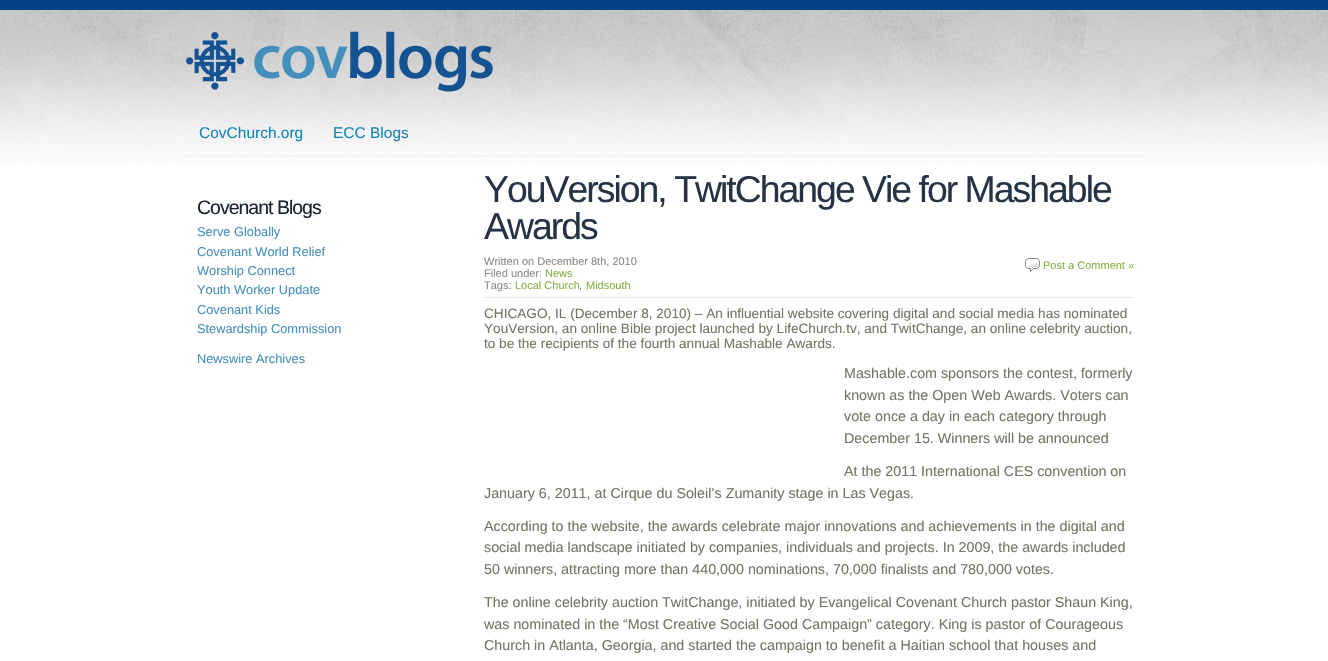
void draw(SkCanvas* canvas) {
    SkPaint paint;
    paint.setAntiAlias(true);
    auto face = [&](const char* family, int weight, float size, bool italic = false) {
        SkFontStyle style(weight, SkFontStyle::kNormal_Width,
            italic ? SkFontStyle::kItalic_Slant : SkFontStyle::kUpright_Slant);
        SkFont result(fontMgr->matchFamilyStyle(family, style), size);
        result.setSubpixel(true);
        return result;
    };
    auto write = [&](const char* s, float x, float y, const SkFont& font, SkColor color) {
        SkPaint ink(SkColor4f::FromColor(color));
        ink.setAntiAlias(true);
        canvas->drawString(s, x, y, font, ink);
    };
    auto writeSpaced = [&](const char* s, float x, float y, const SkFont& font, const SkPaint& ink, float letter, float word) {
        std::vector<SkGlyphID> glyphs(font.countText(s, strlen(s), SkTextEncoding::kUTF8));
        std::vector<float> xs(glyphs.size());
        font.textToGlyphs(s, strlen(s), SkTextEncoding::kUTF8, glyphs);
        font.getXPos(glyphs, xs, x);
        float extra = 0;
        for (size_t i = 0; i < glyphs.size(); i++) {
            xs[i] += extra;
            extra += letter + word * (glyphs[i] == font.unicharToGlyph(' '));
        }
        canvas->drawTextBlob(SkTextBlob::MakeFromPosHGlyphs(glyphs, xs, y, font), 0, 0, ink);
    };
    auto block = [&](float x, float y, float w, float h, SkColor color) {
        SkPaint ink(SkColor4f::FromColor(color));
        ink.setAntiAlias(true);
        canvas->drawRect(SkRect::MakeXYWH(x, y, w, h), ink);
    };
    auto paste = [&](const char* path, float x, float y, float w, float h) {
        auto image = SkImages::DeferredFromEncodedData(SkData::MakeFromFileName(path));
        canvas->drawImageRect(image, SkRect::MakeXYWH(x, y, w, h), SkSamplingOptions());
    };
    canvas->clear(SK_ColorWHITE);
    paste("pic1.png", 0, 10, 1328, 155);
    block(0, 0, 1328, 10, SkColorSetRGB(1, 67, 134));
    paste("pic2.png", 186, 31, 307, 61);
    block(184, 155, 960, 1, SkColorSetRGB(244, 240, 233));
    auto kFont1 = face("Liberation Sans", 400, 15.5f);
    write("CovChurch.org", 199, 138, kFont1, SkColorSetRGB(19, 132, 184));
    write("ECC Blogs", 333, 138, kFont1, SkColorSetRGB(19, 132, 184));
    auto kFont2 = face("Liberation Sans", 400, 19.5f);
    paint.setColor(SkColorSetRGB(24, 33, 46));
    writeSpaced("Covenant Blogs", 197, 214, kFont2, paint, -1, 0);
    auto kFont3 = face("Liberation Sans", 400, 12.8f);
    write("Serve Globally", 197, 236, kFont3, SkColorSetRGB(69, 143, 188));
    write("Covenant World Relief", 197, 256, kFont3, SkColorSetRGB(69, 143, 188));
    write("Worship Connect", 197, 275, kFont3, SkColorSetRGB(69, 143, 188));
    write("Youth Worker Update", 197, 294, kFont3, SkColorSetRGB(69, 143, 188));
    write("Covenant Kids", 197, 314, kFont3, SkColorSetRGB(69, 143, 188));
    write("Stewardship Commission", 197, 333, kFont3, SkColorSetRGB(69, 143, 188));
    write("Newswire Archives", 197, 363, kFont3, SkColorSetRGB(69, 143, 188));
    auto kFont4 = face("Liberation Sans", 400, 37.4f);
    paint.setColor(SkColorSetRGB(37, 51, 69));
    writeSpaced("YouVersion, TwitChange Vie for Mashable", 484, 202, kFont4, paint, -2, 0);
    writeSpaced("Awards", 484, 239, kFont4, paint, -2, 0);
    block(484, 297, 650, 1, SkColorSetRGB(238, 234, 224));
    auto kFont5 = face("Liberation Sans", 400, 11);
    write("Written on December 8th, 2010", 484, 265, kFont5, SkColorSetRGB(136, 136, 136));
    paste("pic3.png", 1025, 258, 15, 14);
    write("Post a Comment »", 1043, 269, kFont5, SkColorSetRGB(133, 178, 69));
    write("Filed under:", 484, 277, kFont5, SkColorSetRGB(136, 136, 136));
    write("News", 545, 277, kFont5, SkColorSetRGB(133, 178, 69));
    write("Tags:", 484, 289, kFont5, SkColorSetRGB(136, 136, 136));
    write("Local Church", 515, 289, kFont5, SkColorSetRGB(133, 178, 69));
    write(",", 579, 289, kFont5, SkColorSetRGB(136, 136, 136));
    write("Midsouth", 586, 289, kFont5, SkColorSetRGB(133, 178, 69));
    auto kFont6 = face("Liberation Sans", 400, 13.6f);
    write("CHICAGO, IL (December 8, 2010) – An influential website covering digital and social media has nominated", 484, 318, kFont6, SkColorSetRGB(117, 115, 100));
    write("YouVersion, an online Bible project launched by LifeChurch.tv, and TwitChange, an online celebrity auction,", 484, 333, kFont6, SkColorSetRGB(117, 115, 100));
    write("to be the recipients of the fourth annual Mashable Awards.", 484, 348, kFont6, SkColorSetRGB(117, 115, 100));
    auto kFont7 = face("Liberation Sans", 400, 14.3f);
    write("Mashable.com sponsors the contest, formerly", 844, 378, kFont7, SkColorSetRGB(117, 115, 100));
    write("known as the Open Web Awards. Voters can", 844, 400, kFont7, SkColorSetRGB(117, 115, 100));
    write("vote once a day in each category through", 844, 421, kFont7, SkColorSetRGB(117, 115, 100));
    write("December 15. Winners will be announced", 844, 443, kFont7, SkColorSetRGB(117, 115, 100));
    write("At the 2011 International CES convention on", 844, 476, kFont7, SkColorSetRGB(117, 115, 100));
    write("January 6, 2011, at Cirque du Soleil’s Zumanity stage in Las Vegas.", 484, 498, kFont7, SkColorSetRGB(117, 115, 100));
    write("According to the website, the awards celebrate major innovations and achievements in the digital and", 484, 531, kFont7, SkColorSetRGB(117, 115, 100));
    write("social media landscape initiated by companies, individuals and projects. In 2009, the awards included", 484, 552, kFont7, SkColorSetRGB(117, 115, 100));
    write("50 winners, attracting more than 440,000 nominations, 70,000 finalists and 780,000 votes.", 484, 574, kFont7, SkColorSetRGB(117, 115, 100));
    write("The online celebrity auction TwitChange, initiated by Evangelical Covenant Church pastor Shaun King,", 484, 607, kFont7, SkColorSetRGB(117, 115, 100));
    write("was nominated in the “Most Creative Social Good Campaign” category. King is pastor of Courageous", 484, 629, kFont7, SkColorSetRGB(117, 115, 100));
    write("Church in Atlanta, Georgia, and started the campaign to benefit a Haitian school that houses and", 484, 650, kFont7, SkColorSetRGB(117, 115, 100));
}
